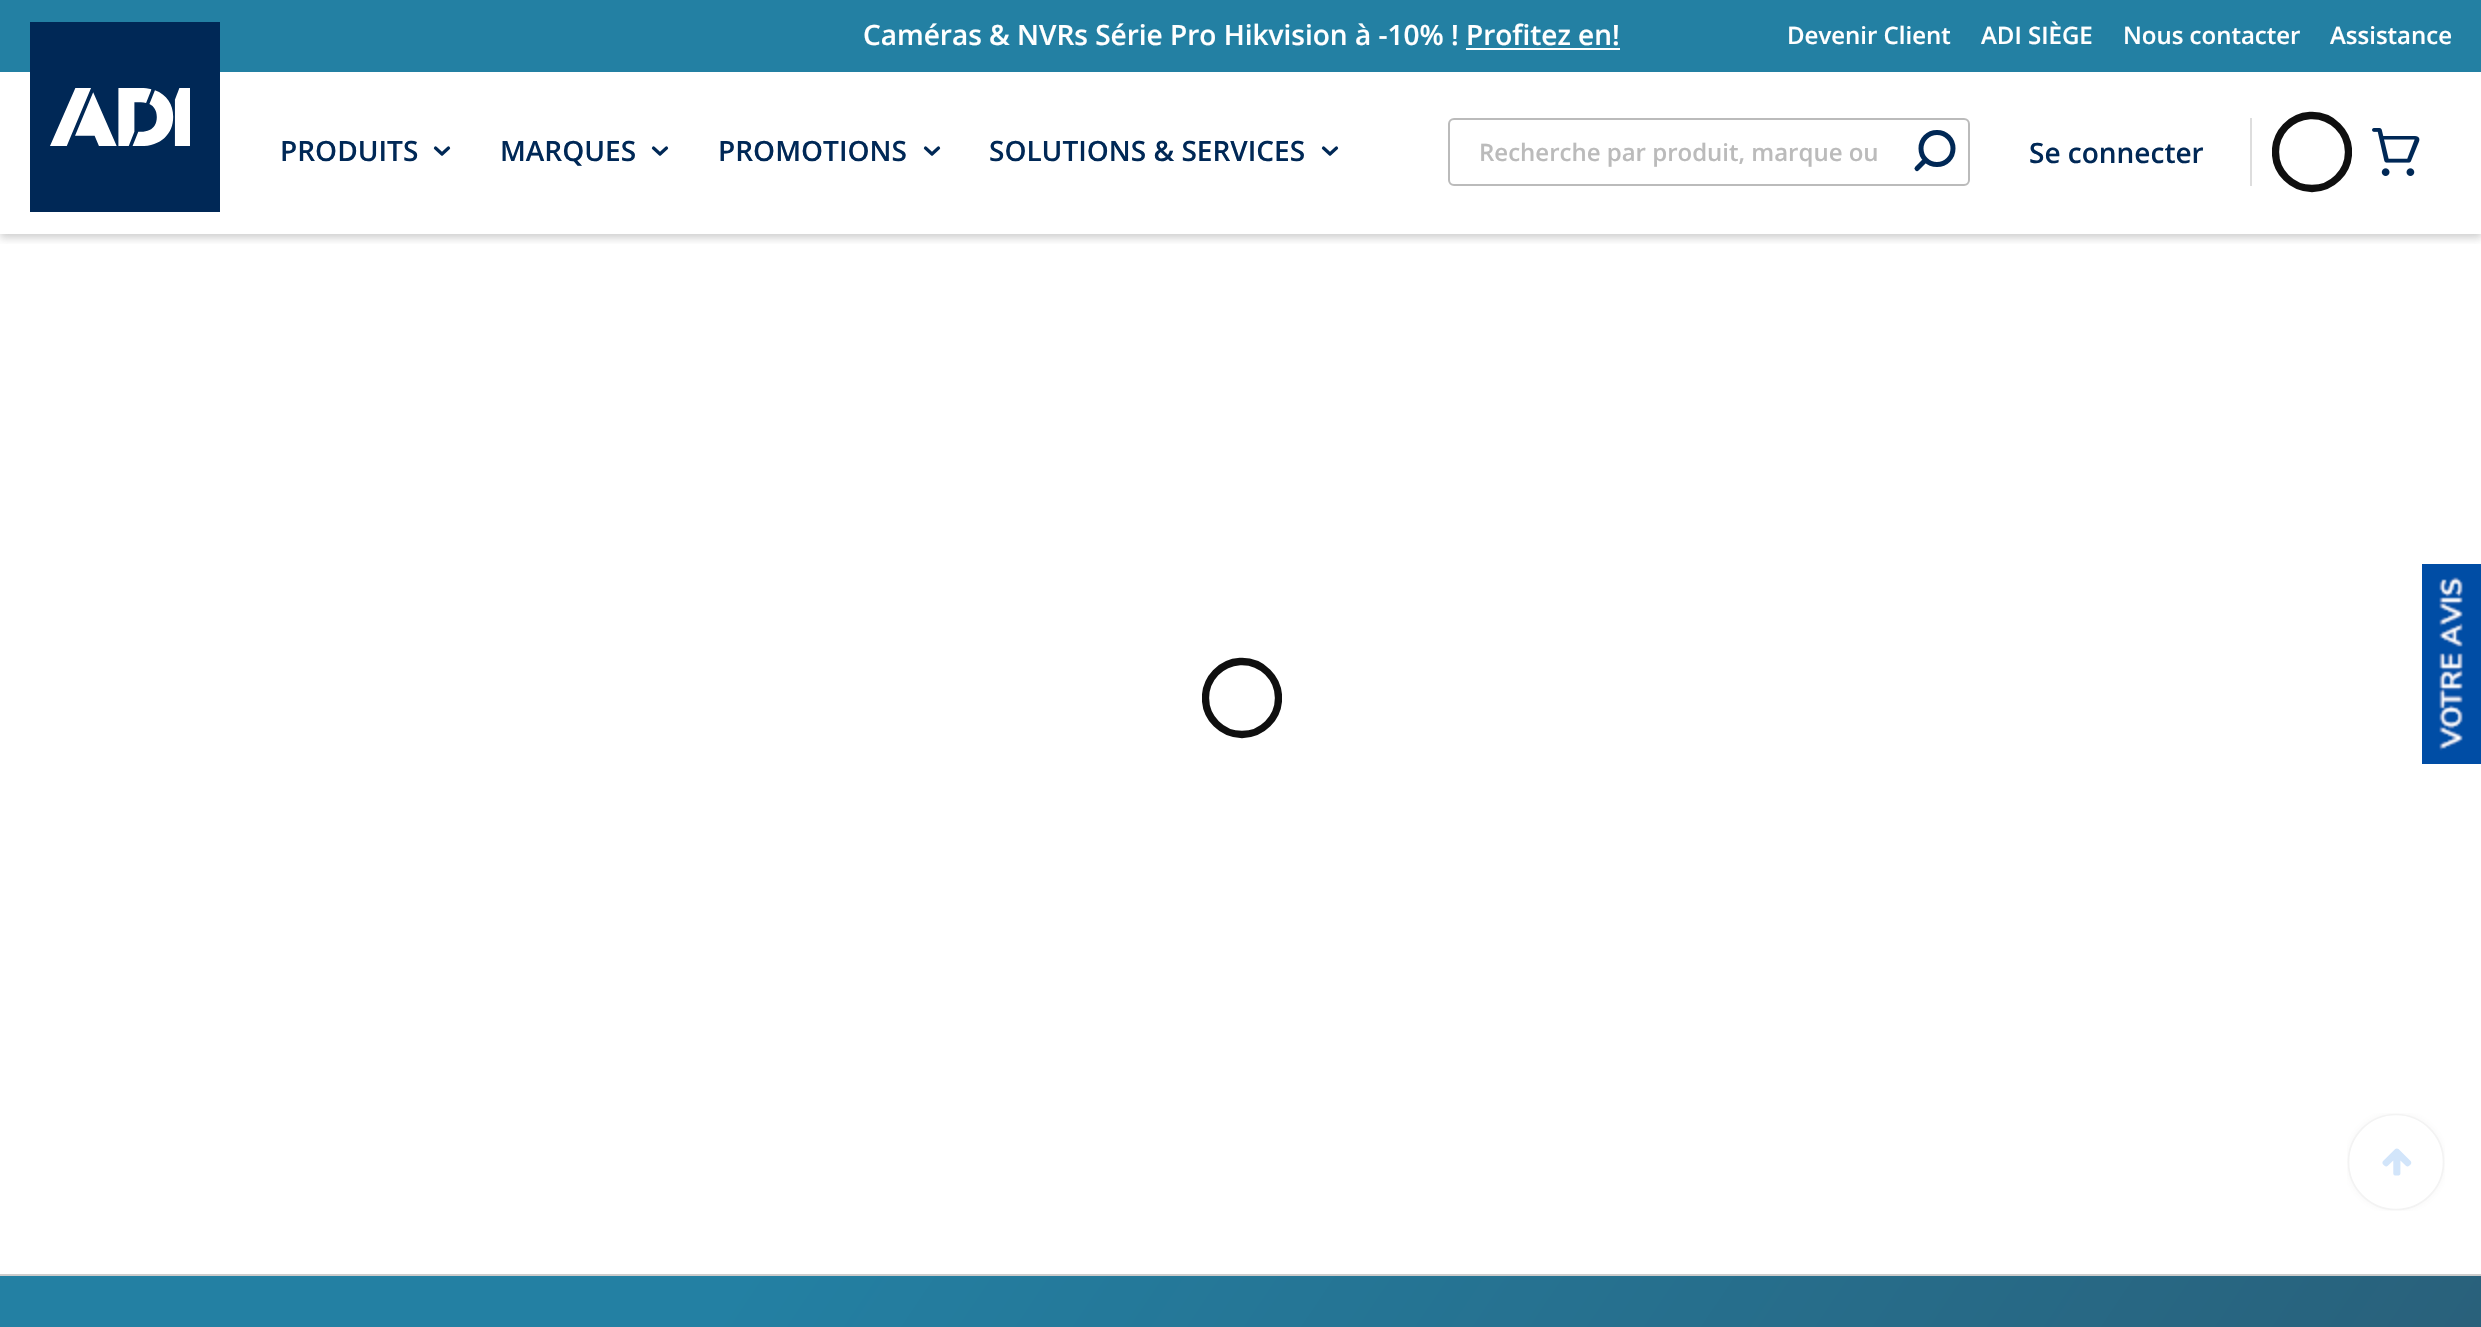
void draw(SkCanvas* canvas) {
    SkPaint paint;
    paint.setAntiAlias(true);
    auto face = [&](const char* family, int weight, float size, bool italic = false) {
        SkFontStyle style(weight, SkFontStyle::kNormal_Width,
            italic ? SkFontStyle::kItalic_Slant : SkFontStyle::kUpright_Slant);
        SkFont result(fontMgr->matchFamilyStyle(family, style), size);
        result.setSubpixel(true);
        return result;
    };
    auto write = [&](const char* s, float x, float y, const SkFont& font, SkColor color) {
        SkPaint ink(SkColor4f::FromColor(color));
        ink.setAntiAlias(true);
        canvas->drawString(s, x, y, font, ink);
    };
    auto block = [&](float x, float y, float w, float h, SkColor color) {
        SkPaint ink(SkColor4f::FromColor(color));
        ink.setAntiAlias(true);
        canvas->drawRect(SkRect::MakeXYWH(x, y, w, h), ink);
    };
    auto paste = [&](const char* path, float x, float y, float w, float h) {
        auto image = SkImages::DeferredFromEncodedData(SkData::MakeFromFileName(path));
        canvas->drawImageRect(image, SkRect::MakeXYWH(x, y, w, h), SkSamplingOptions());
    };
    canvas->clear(SK_ColorWHITE);
    canvas->save();
    canvas->clipRect(SkRect::MakeXYWH(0, 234, 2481, 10));
    paint.setColor(SkColorSetARGB(82, 105, 105, 105));
    paint.setMaskFilter(SkMaskFilter::MakeBlur(kNormal_SkBlurStyle, 4));
    canvas->drawRect(SkRect::MakeXYWH(0, 4, 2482, 234), paint);
    paint.setMaskFilter(nullptr);
    canvas->restore();
    block(0, 0, 2481, 72, SkColorSetRGB(35, 128, 163));
    auto kFont1 = face("Open Sans", 600, 28);
    write("Caméras & NVRs Série Pro Hikvision à -10% ! Profitez en!", 863, 45, kFont1, SK_ColorWHITE);
    block(1466, 48, 154, 2, SK_ColorWHITE);
    auto kFont2 = face("Open Sans", 600, 24);
    write("Devenir Client", 1787, 44, kFont2, SK_ColorWHITE);
    write("ADI SIÈGE", 1981, 44, kFont2, SK_ColorWHITE);
    write("Nous contacter", 2123, 44, kFont2, SK_ColorWHITE);
    write("Assistance", 2330, 44, kFont2, SK_ColorWHITE);
    paste("pic1.png", 30, 22, 190, 190);
    auto kFont3 = face("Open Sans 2", 600, 28);
    write("PRODUITS", 280, 161, kFont3, SkColorSetRGB(0, 40, 86));
    paint.setStyle(SkPaint::kStroke_Style);
    paint.setStrokeWidth(3.2f);
    paint.setStrokeCap(SkPaint::kRound_Cap);
    paint.setStrokeJoin(SkPaint::kRound_Join);
    paint.setColor(SkColorSetRGB(0, 40, 86));
    canvas->drawPath(SkPathBuilder().moveTo(435.5f, 148).lineTo(442, 154).lineTo(448.5f, 148).detach(), paint);
    write("MARQUES", 500, 161, kFont3, SkColorSetRGB(0, 40, 86));
    canvas->drawPath(SkPathBuilder().moveTo(653.5f, 148).lineTo(660, 154).lineTo(666.5f, 148).detach(), paint);
    write("PROMOTIONS", 718, 161, kFont3, SkColorSetRGB(0, 40, 86));
    canvas->drawPath(SkPathBuilder().moveTo(925.5f, 148).lineTo(932, 154).lineTo(938.5f, 148).detach(), paint);
    write("SOLUTIONS & SERVICES", 989, 161, kFont3, SkColorSetRGB(0, 40, 86));
    canvas->drawPath(SkPathBuilder().moveTo(1323.5f, 148).lineTo(1330, 154).lineTo(1336.5f, 148).detach(), paint);
    paint.setStrokeWidth(2);
    paint.setStrokeCap(SkPaint::kButt_Cap);
    paint.setStrokeJoin(SkPaint::kMiter_Join);
    paint.setColor(SkColorSetRGB(187, 187, 187));
    canvas->drawRoundRect(SkRect::MakeXYWH(1449, 119, 520, 66), 5, 5, paint);
    write("Recherche par produit, marque ou", 1479, 161, kFont2, SkColorSetRGB(187, 187, 187));
    paint.setStrokeWidth(5);
    paint.setStrokeCap(SkPaint::kRound_Cap);
    paint.setStrokeJoin(SkPaint::kRound_Join);
    paint.setColor(SkColorSetRGB(0, 40, 86));
    canvas->drawPath(SkPathBuilder().moveTo(1953, 148.5f).cubicTo(1953, 157.5f, 1946, 164.5f, 1937, 164.5f).cubicTo(1928, 164.5f, 1921, 157.5f, 1921, 148.5f).cubicTo(1921, 139.5f, 1928, 132.5f, 1937, 132.5f).cubicTo(1946, 132.5f, 1953, 139.5f, 1953, 148.5f).close().moveTo(1917, 168.5f).lineTo(1925.5f, 160).detach(), paint);
    block(2250, 118, 2, 68, SkColorSetRGB(221, 221, 221));
    write("Se connecter", 2029, 163, kFont1, SkColorSetRGB(0, 40, 86));
    canvas->save();
    canvas->clipRect(SkRect::MakeXYWH(2272, 0, 80, 552));
    paint.setStrokeWidth(7.3f);
    paint.setStrokeJoin(SkPaint::kMiter_Join);
    paint.setColor(SkColorSetRGB(15, 15, 15));
    canvas->drawPath(SkPathBuilder().moveTo(2312, 115.5f).cubicTo(2332, 115.5f, 2348.5f, 132, 2348.5f, 152).cubicTo(2348.5f, 172, 2332, 188.5f, 2312, 188.5f).cubicTo(2292, 188.5f, 2275.5f, 172, 2275.5f, 152).cubicTo(2275.5f, 132.5f, 2291, 116.5f, 2310, 115.5f).detach(), paint);
    canvas->restore();
    paste("pic2.png", 2372, 128, 48, 48);
    canvas->save();
    canvas->clipRect(SkRect::MakeXYWH(1202, 334, 80, 728));
    canvas->drawPath(SkPathBuilder().moveTo(1242, 661.5f).cubicTo(1262, 661.5f, 1278.5f, 678, 1278.5f, 698).cubicTo(1278.5f, 718, 1262, 734.5f, 1242, 734.5f).cubicTo(1222, 734.5f, 1205.5f, 718, 1205.5f, 698).cubicTo(1205.5f, 678.5f, 1221, 662.5f, 1240, 661.5f).detach(), paint);
    canvas->restore();
    paint.setStyle(SkPaint::kFill_Style);
    {
        const SkColor colors[] = {SkColorSetRGB(35, 128, 163), SkColorSetRGB(43, 86, 109)};
        const float stops[] = {0.19f, 0.81f};
        const SkPoint ends[] = {{-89, 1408}, {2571, 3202}};
        paint.setShader(SkGradientShader::MakeLinear(ends, colors, stops, 2, SkTileMode::kClamp));
        paint.setAlpha(255);
    }
    canvas->drawRect(SkRect::MakeXYWH(0, 1276, 2481, 51), paint);
    block(0, 1274, 2481, 2, SkColorSetRGB(204, 204, 204));
    paste("pic3.png", 2347, 1113, 98, 98);
    paste("pic4.png", 2422, 564, 59, 200);
}
